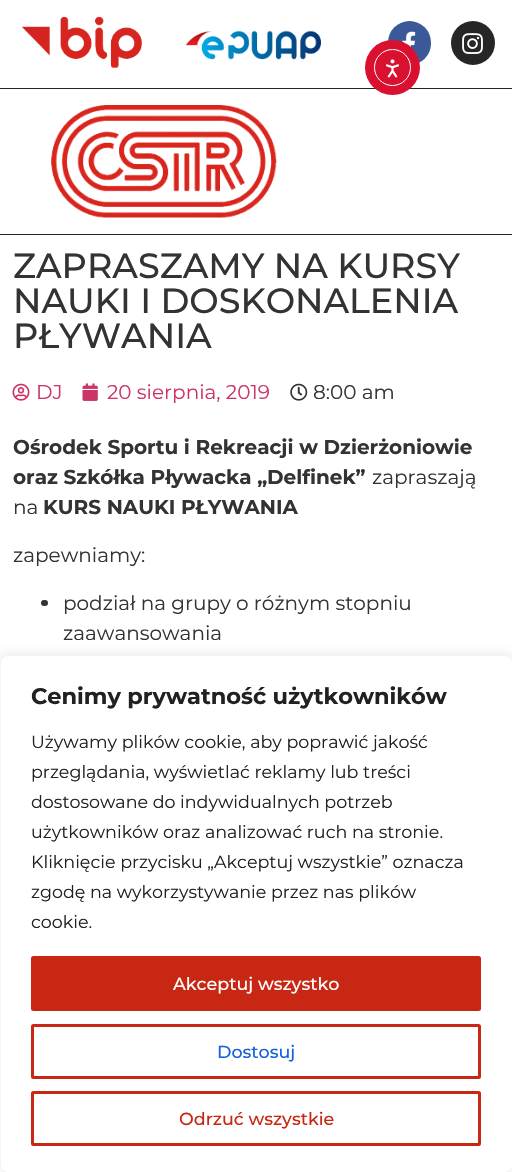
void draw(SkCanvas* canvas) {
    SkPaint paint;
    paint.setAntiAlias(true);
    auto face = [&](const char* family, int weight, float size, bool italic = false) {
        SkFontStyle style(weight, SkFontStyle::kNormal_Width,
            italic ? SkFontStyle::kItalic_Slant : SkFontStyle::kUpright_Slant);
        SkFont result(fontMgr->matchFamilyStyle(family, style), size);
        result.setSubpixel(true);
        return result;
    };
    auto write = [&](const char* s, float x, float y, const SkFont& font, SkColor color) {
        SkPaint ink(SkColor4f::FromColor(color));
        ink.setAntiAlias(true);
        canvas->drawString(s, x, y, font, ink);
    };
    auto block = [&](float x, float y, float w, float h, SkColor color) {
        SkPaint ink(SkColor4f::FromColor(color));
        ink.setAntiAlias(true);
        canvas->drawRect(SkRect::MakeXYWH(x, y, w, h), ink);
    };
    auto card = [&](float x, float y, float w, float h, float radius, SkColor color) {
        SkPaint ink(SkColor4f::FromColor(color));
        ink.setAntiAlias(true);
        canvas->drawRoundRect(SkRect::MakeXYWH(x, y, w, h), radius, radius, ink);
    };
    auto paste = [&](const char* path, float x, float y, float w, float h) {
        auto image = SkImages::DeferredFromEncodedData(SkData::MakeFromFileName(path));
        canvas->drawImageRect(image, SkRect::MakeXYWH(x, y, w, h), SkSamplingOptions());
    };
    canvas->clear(SK_ColorWHITE);
    paste("pic1.png", 22, 16, 120, 52);
    paste("pic2.png", 185, 30, 136, 30);
    card(388, 21, 43, 44, 21.5f, SkColorSetRGB(59, 89, 152));
    paste("pic3.png", 402, 31, 14, 17);
    paint.setColor(SkColorSetRGB(38, 38, 38));
    canvas->drawCircle(473, 43, 22, paint);
    paste("pic4.png", 462, 33, 21, 21);
    block(0, 88, 512, 1, SkColorSetRGB(36, 36, 36));
    block(0, 234, 512, 1, SkColorSetRGB(36, 36, 36));
    paste("pic5.png", 51, 105, 226, 113);
    paint.setColor(SkColorSetRGB(218, 16, 48));
    canvas->drawCircle(392.5f, 67.5f, 27.5f, paint);
    paint.setStyle(SkPaint::kStroke_Style);
    paint.setStrokeWidth(1);
    paint.setColor(SK_ColorWHITE);
    canvas->drawCircle(392.5f, 67.5f, 18, paint);
    paste("pic6.png", 385, 59, 14, 19);
    auto kFont1 = face("Montserrat", 500, 35);
    write("ZAPRASZAMY NA KURSY", 13, 278, kFont1, SkColorSetRGB(51, 51, 51));
    write("NAUKI I DOSKONALENIA", 13, 313, kFont1, SkColorSetRGB(51, 51, 51));
    write("PŁYWANIA", 13, 348, kFont1, SkColorSetRGB(51, 51, 51));
    paste("pic7.png", 12, 383, 18, 18);
    auto kFont2 = face("Montserrat", 400, 20);
    write("DJ", 36, 399, kFont2, SkColorSetRGB(204, 51, 102));
    paste("pic8.png", 82, 383, 16, 18);
    write("20 sierpnia, 2019", 107, 399, kFont2, SkColorSetRGB(204, 51, 102));
    paste("pic9.png", 290, 383, 18, 18);
    write("8:00 am", 313, 399, kFont2, SkColorSetRGB(51, 51, 51));
    auto kFont3 = face("Montserrat", 700, 20);
    write("Ośrodek Sportu i Rekreacji w Dzierżoniowie", 13, 454, kFont3, SkColorSetRGB(51, 51, 51));
    write("oraz Szkółka Pływacka „Delfinek”", 13, 484, kFont3, SkColorSetRGB(51, 51, 51));
    write("zapraszają", 372, 484, kFont2, SkColorSetRGB(51, 51, 51));
    write("na", 13, 514, kFont2, SkColorSetRGB(51, 51, 51));
    write("KURS NAUKI PŁYWANIA", 43, 514, kFont3, SkColorSetRGB(51, 51, 51));
    write("zapewniamy:", 13, 562, kFont2, SkColorSetRGB(51, 51, 51));
    card(41, 600, 7, 6, 3, SkColorSetRGB(51, 51, 51));
    write("podział na grupy o różnym stopniu", 63, 610, kFont2, SkColorSetRGB(51, 51, 51));
    write("zaawansowania", 63, 640, kFont2, SkColorSetRGB(51, 51, 51));
    paint.setStyle(SkPaint::kFill_Style);
    paint.setColor(SkColorSetARGB(77, 172, 171, 171));
    paint.setMaskFilter(SkMaskFilter::MakeBlur(kNormal_SkBlurStyle, 6));
    canvas->drawRoundRect(SkRect::MakeXYWH(0, 654, 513, 517), 8, 8, paint);
    paint.setMaskFilter(nullptr);
    paint.setColor(SK_ColorWHITE);
    canvas->drawRoundRect(SkRect::MakeXYWH(0.5f, 655.5f, 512, 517), 7.5f, 7.5f, paint);
    paint.setStyle(SkPaint::kStroke_Style);
    paint.setColor(SkColorSetRGB(244, 244, 244));
    canvas->drawRoundRect(SkRect::MakeXYWH(0.5f, 655.5f, 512, 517), 7.5f, 7.5f, paint);
    auto kFont4 = face("Montserrat", 700, 22.5f);
    write("Cenimy prywatność użytkowników", 31, 704, kFont4, SkColorSetRGB(33, 33, 33));
    auto kFont5 = face("Montserrat", 400, 17.5f);
    write("Używamy plików cookie, aby poprawić jakość", 31, 748, kFont5, SkColorSetRGB(33, 33, 33));
    write("przeglądania, wyświetlać reklamy lub treści", 31, 778, kFont5, SkColorSetRGB(33, 33, 33));
    write("dostosowane do indywidualnych potrzeb", 31, 808, kFont5, SkColorSetRGB(33, 33, 33));
    write("użytkowników oraz analizować ruch na stronie.", 31, 838, kFont5, SkColorSetRGB(33, 33, 33));
    write("Kliknięcie przycisku „Akceptuj wszystkie” oznacza", 31, 868, kFont5, SkColorSetRGB(33, 33, 33));
    write("zgodę na wykorzystywanie przez nas plików", 31, 898, kFont5, SkColorSetRGB(33, 33, 33));
    write("cookie.", 31, 928, kFont5, SkColorSetRGB(33, 33, 33));
    paint.setStyle(SkPaint::kFill_Style);
    paint.setColor(SkColorSetRGB(200, 40, 19));
    canvas->drawRoundRect(SkRect::MakeXYWH(32.5f, 957.5f, 447, 52), 1, 1, paint);
    paint.setStyle(SkPaint::kStroke_Style);
    paint.setStrokeWidth(3);
    canvas->drawRoundRect(SkRect::MakeXYWH(32.5f, 957.5f, 447, 52), 1, 1, paint);
    auto kFont6 = face("Montserrat", 500, 17.5f);
    write("Akceptuj wszystko", 173, 990, kFont6, SK_ColorWHITE);
    canvas->drawRoundRect(SkRect::MakeXYWH(32.5f, 1025.5f, 447, 52), 1, 1, paint);
    write("Dostosuj", 217, 1058, kFont6, SkColorSetRGB(24, 99, 220));
    canvas->drawRoundRect(SkRect::MakeXYWH(32.5f, 1092.5f, 447, 52), 1, 1, paint);
    write("Odrzuć wszystkie", 179, 1125, kFont6, SkColorSetRGB(200, 40, 19));
}
